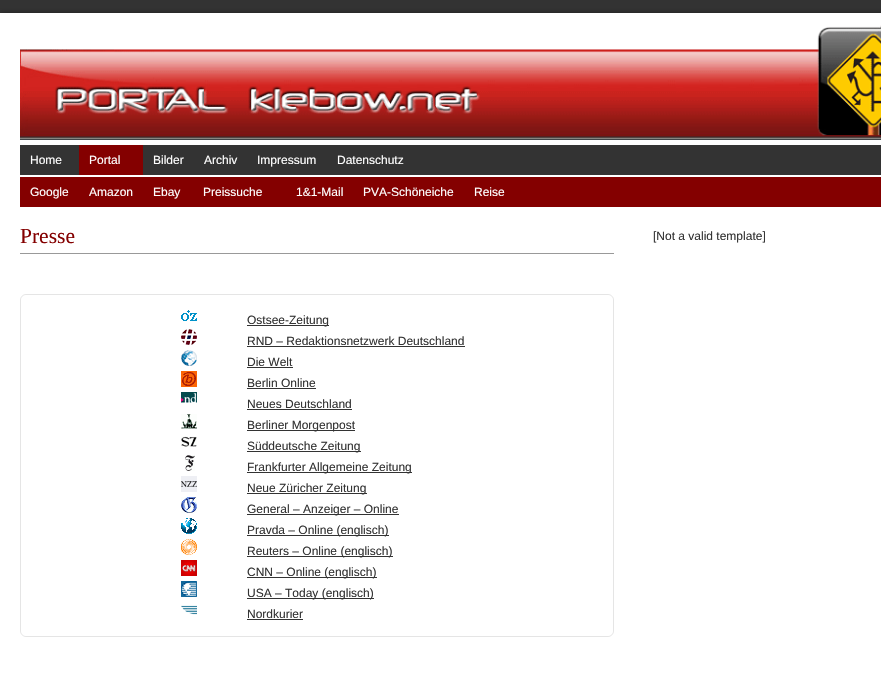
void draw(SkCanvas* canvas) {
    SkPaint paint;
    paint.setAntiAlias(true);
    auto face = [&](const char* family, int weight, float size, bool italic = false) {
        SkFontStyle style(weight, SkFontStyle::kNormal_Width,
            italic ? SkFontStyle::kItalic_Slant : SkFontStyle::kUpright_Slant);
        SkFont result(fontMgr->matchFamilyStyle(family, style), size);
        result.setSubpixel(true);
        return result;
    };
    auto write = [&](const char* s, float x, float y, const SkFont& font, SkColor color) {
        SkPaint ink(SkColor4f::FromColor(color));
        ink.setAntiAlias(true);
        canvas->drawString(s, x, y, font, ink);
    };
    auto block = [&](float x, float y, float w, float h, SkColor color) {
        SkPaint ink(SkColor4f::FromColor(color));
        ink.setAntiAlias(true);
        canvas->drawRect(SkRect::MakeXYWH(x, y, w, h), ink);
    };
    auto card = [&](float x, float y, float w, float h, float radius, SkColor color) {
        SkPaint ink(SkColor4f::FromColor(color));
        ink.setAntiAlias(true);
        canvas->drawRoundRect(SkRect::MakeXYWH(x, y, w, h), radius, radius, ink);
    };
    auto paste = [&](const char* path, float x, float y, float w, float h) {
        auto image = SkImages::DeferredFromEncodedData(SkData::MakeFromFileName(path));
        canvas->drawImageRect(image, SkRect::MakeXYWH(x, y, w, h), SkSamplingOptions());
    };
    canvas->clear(SkColorSetRGB(51, 51, 51));
    paint.setColor(SkColorSetARGB(102, 0, 0, 0));
    paint.setMaskFilter(SkMaskFilter::MakeBlur(kNormal_SkBlurStyle, 2.5f));
    canvas->drawRect(SkRect::MakeXYWH(0, 13, 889, 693), paint);
    paint.setMaskFilter(nullptr);
    block(0, 13, 881, 685, SK_ColorWHITE);
    paste("pic1.png", 20, 25, 861, 115);
    block(20, 145, 861, 30, SkColorSetRGB(51, 51, 51));
    auto kFont1 = face("Liberation Sans", 400, 12);
    write("Home", 30, 164, kFont1, SK_ColorWHITE);
    block(79, 145, 64, 30, SkColorSetRGB(132, 0, 0));
    write("Portal", 89, 164, kFont1, SK_ColorWHITE);
    write("Bilder", 153, 164, kFont1, SK_ColorWHITE);
    write("Archiv", 204, 164, kFont1, SK_ColorWHITE);
    write("Impressum", 257, 164, kFont1, SK_ColorWHITE);
    write("Datenschutz", 337, 164, kFont1, SK_ColorWHITE);
    block(20, 177, 861, 30, SkColorSetRGB(132, 0, 0));
    write("Google", 30, 196, kFont1, SK_ColorWHITE);
    write("Amazon", 89, 196, kFont1, SK_ColorWHITE);
    write("Ebay", 153, 196, kFont1, SK_ColorWHITE);
    write("Preissuche", 203, 196, kFont1, SK_ColorWHITE);
    write("1&1-Mail", 296, 196, kFont1, SK_ColorWHITE);
    write("PVA-Schöneiche", 363, 196, kFont1, SK_ColorWHITE);
    write("Reise", 474, 196, kFont1, SK_ColorWHITE);
    block(20, 253, 594, 1, SkColorSetRGB(153, 153, 153));
    auto kFont2 = face("Liberation Serif", 400, 21.5f);
    write("Presse", 20, 243, kFont2, SkColorSetRGB(132, 0, 0));
    paint.setStyle(SkPaint::kStroke_Style);
    paint.setStrokeWidth(1);
    paint.setColor(SkColorSetRGB(229, 229, 229));
    canvas->drawRoundRect(SkRect::MakeXYWH(20.5f, 294.5f, 593, 342), 5.5f, 5.5f, paint);
    card(21, 295, 592, 341, 6, SK_ColorWHITE);
    paste("pic2.png", 181, 310, 16, 11);
    block(247, 325, 82, 1, SkColorSetRGB(51, 51, 51));
    write("Ostsee-Zeitung", 247, 324, kFont1, SkColorSetRGB(51, 51, 51));
    paste("pic3.png", 181, 329, 16, 16);
    write("RND – Redaktionsnetzwerk Deutschland", 247, 345, kFont1, SkColorSetRGB(51, 51, 51));
    block(247, 346, 218, 1, SkColorSetRGB(51, 51, 51));
    paste("pic4.png", 181, 350, 16, 16);
    write("Die Welt", 247, 366, kFont1, SkColorSetRGB(51, 51, 51));
    block(247, 367, 46, 1, SkColorSetRGB(51, 51, 51));
    paste("pic5.png", 181, 371, 16, 16);
    write("Berlin Online", 247, 387, kFont1, SkColorSetRGB(51, 51, 51));
    block(247, 388, 69, 1, SkColorSetRGB(51, 51, 51));
    paste("pic6.png", 181, 392, 16, 11);
    write("Neues Deutschland", 247, 408, kFont1, SkColorSetRGB(51, 51, 51));
    block(247, 409, 105, 1, SkColorSetRGB(51, 51, 51));
    paste("pic7.png", 181, 414, 16, 15);
    block(247, 430, 108, 1, SkColorSetRGB(51, 51, 51));
    write("Berliner Morgenpost", 247, 429, kFont1, SkColorSetRGB(51, 51, 51));
    paste("pic8.png", 181, 436, 16, 11);
    block(247, 451, 114, 1, SkColorSetRGB(51, 51, 51));
    write("Süddeutsche Zeitung", 247, 450, kFont1, SkColorSetRGB(51, 51, 51));
    paste("pic9.png", 185, 455, 10, 16);
    block(247, 472, 165, 1, SkColorSetRGB(51, 51, 51));
    write("Frankfurter Allgemeine Zeitung", 247, 471, kFont1, SkColorSetRGB(51, 51, 51));
    paste("pic10.png", 181, 476, 16, 16);
    block(247, 493, 120, 1, SkColorSetRGB(51, 51, 51));
    write("Neue Züricher Zeitung", 247, 492, kFont1, SkColorSetRGB(51, 51, 51));
    paste("pic11.png", 181, 497, 16, 16);
    block(247, 514, 152, 1, SkColorSetRGB(51, 51, 51));
    write("General – Anzeiger – Online", 247, 513, kFont1, SkColorSetRGB(51, 51, 51));
    paste("pic12.png", 181, 518, 16, 16);
    block(247, 535, 142, 1, SkColorSetRGB(51, 51, 51));
    write("Pravda – Online (englisch)", 247, 534, kFont1, SkColorSetRGB(51, 51, 51));
    paste("pic13.png", 181, 539, 16, 16);
    block(247, 556, 146, 1, SkColorSetRGB(51, 51, 51));
    write("Reuters – Online (englisch)", 247, 555, kFont1, SkColorSetRGB(51, 51, 51));
    paste("pic14.png", 181, 560, 16, 16);
    block(247, 577, 130, 1, SkColorSetRGB(51, 51, 51));
    write("CNN – Online (englisch)", 247, 576, kFont1, SkColorSetRGB(51, 51, 51));
    paste("pic15.png", 181, 581, 16, 16);
    block(247, 598, 127, 1, SkColorSetRGB(51, 51, 51));
    write("USA – Today (englisch)", 247, 597, kFont1, SkColorSetRGB(51, 51, 51));
    paste("pic16.png", 181, 605, 16, 10);
    write("Nordkurier", 247, 618, kFont1, SkColorSetRGB(51, 51, 51));
    block(247, 619, 56, 1, SkColorSetRGB(51, 51, 51));
    write("[Not a valid template]", 653, 240, kFont1, SkColorSetRGB(51, 51, 51));
}
